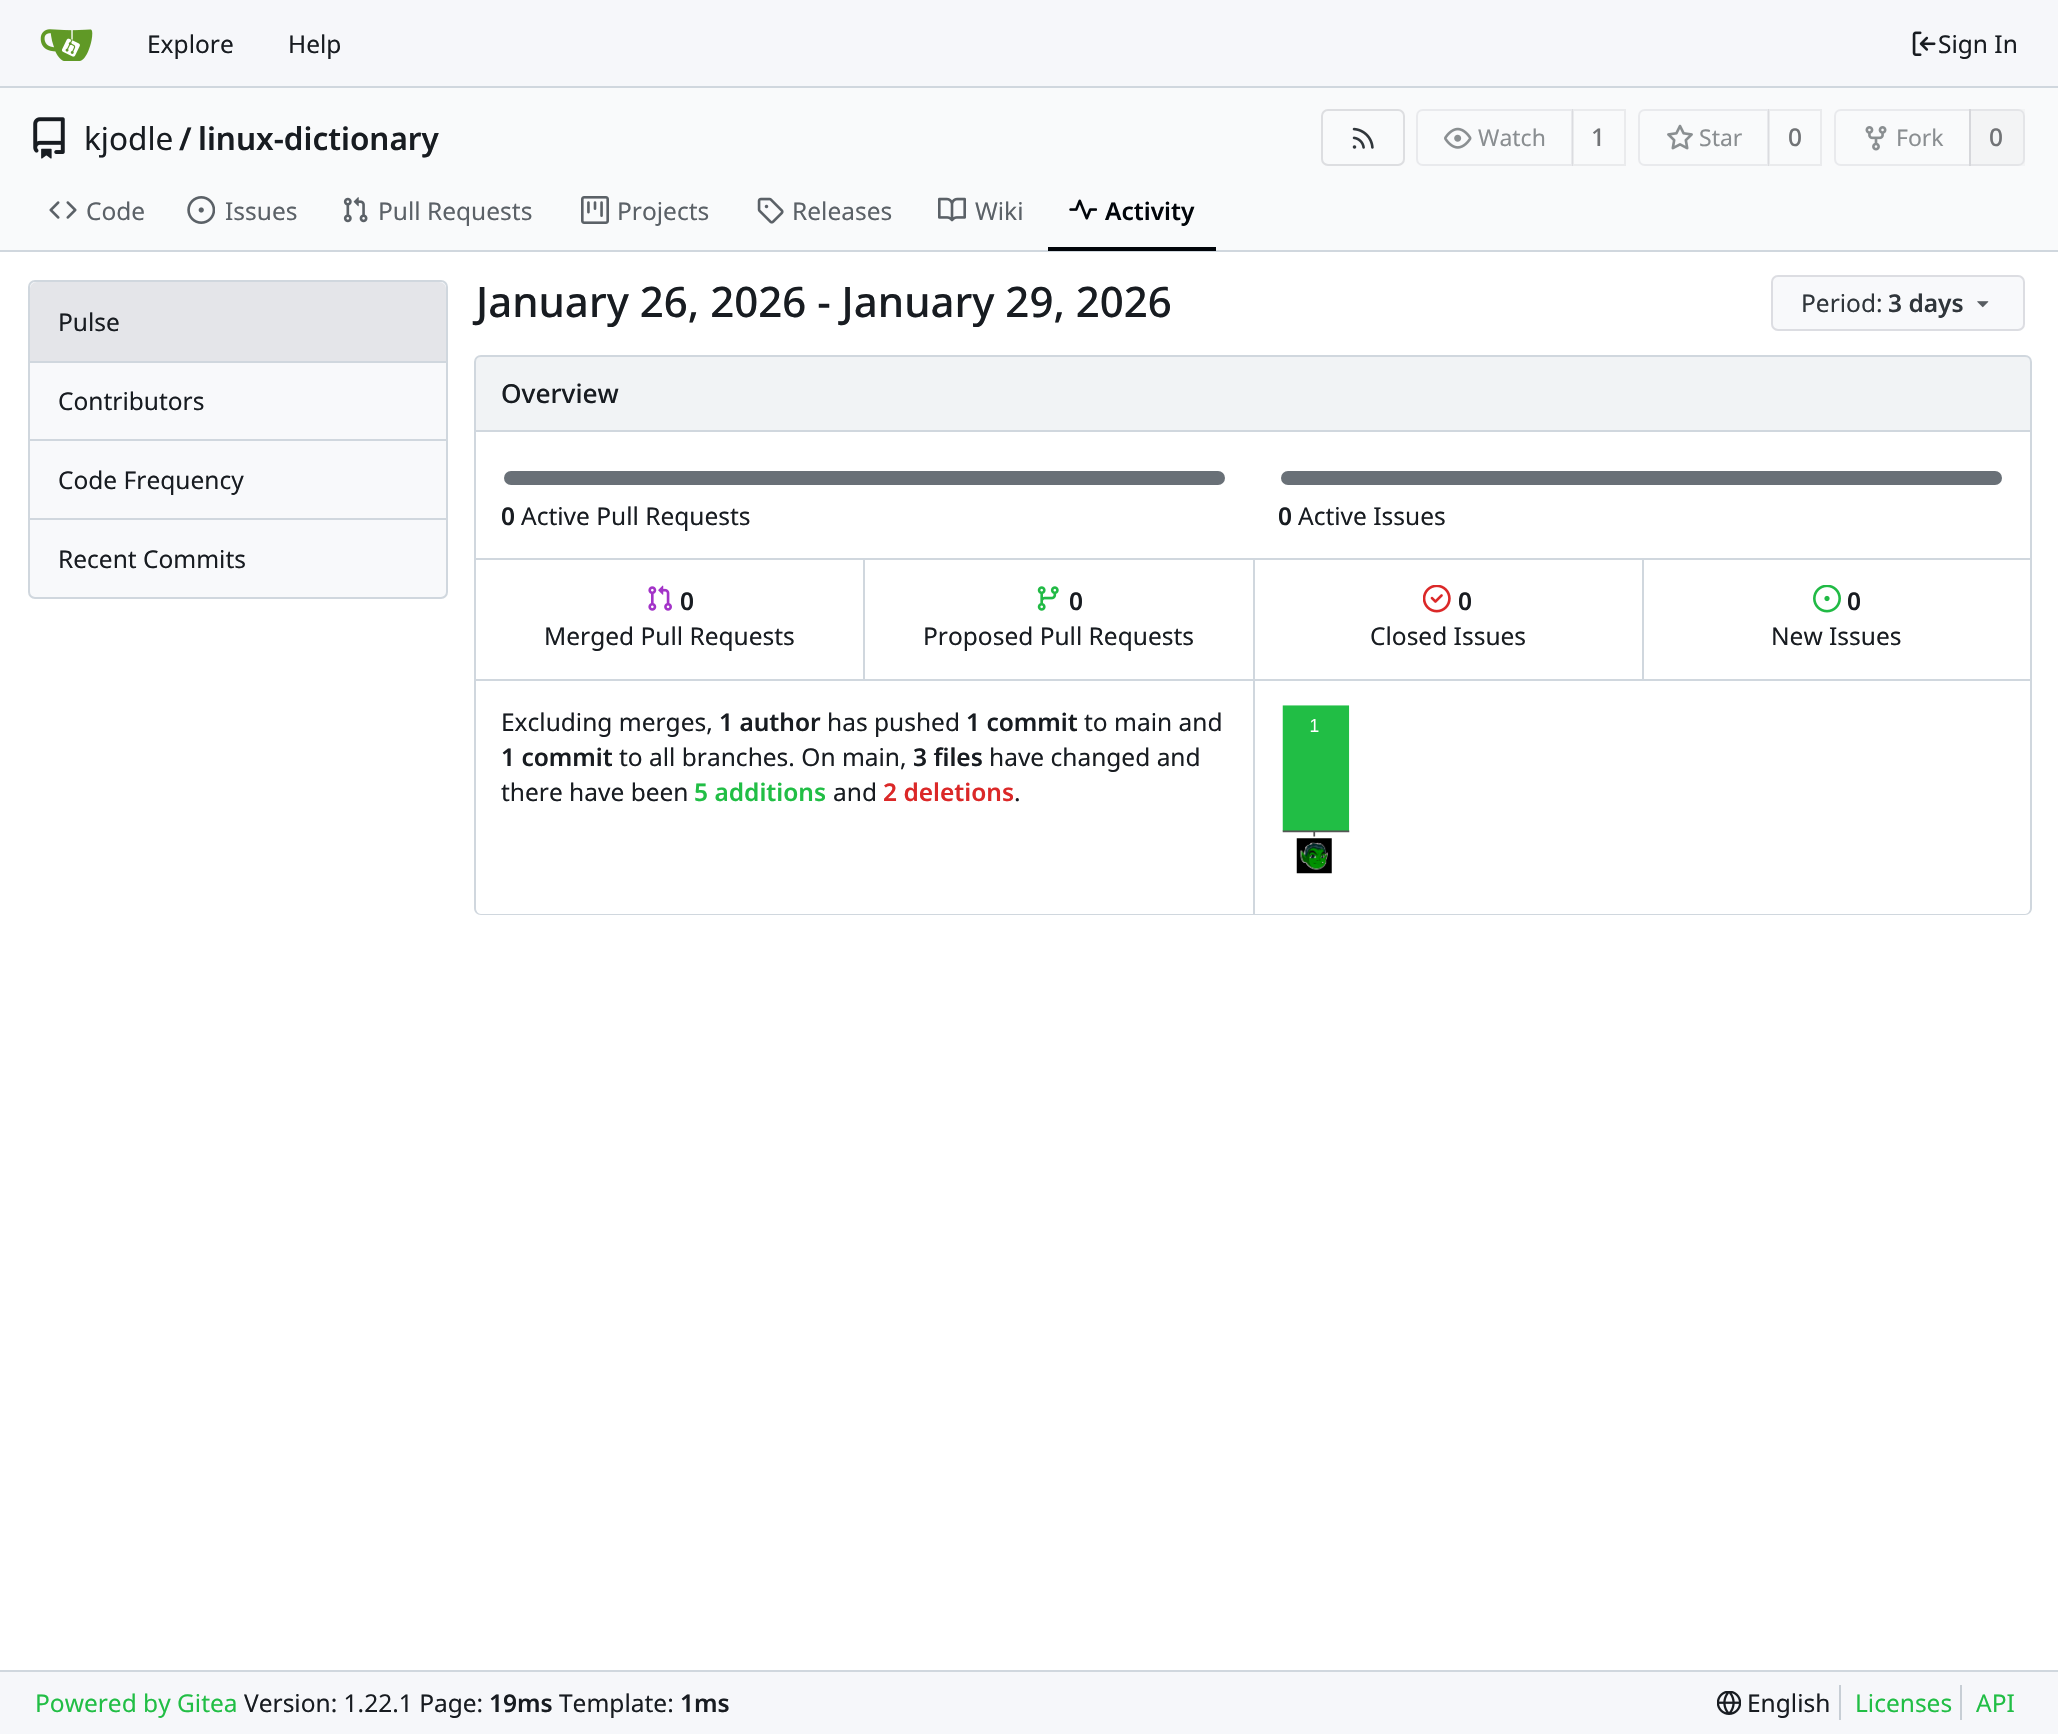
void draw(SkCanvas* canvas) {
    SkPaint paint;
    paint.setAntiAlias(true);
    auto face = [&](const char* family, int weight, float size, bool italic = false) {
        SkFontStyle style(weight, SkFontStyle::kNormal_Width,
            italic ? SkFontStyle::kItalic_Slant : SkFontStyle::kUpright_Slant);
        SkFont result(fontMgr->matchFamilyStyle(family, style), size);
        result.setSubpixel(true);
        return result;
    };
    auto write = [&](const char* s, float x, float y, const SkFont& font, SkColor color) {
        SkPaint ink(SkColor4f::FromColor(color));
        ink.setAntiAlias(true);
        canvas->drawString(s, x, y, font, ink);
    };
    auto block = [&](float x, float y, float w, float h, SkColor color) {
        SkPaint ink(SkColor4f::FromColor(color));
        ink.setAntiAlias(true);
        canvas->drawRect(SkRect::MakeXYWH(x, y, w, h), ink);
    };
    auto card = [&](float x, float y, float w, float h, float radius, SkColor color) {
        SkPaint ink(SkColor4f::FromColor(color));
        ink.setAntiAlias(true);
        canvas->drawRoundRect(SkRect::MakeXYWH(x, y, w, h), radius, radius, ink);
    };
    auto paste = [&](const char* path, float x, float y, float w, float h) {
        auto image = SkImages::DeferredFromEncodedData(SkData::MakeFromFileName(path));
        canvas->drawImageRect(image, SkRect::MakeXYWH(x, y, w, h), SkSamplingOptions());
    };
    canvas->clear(SK_ColorWHITE);
    block(0, 0, 2058, 86, SkColorSetRGB(246, 247, 250));
    block(0, 86, 2058, 2, SkColorSetRGB(208, 215, 222));
    paste("pic1.png", 40, 29, 53, 32);
    auto kFont1 = face("Noto Sans", 400, 24.5f);
    write("Explore", 147, 53, kFont1, SkColorSetRGB(24, 28, 33));
    write("Help", 288, 53, kFont1, SkColorSetRGB(24, 28, 33));
    paste("pic2.png", 1912, 31, 24, 25);
    write("Sign In", 1938, 53, kFont1, SkColorSetRGB(24, 28, 33));
    block(0, 88, 2058, 162, SkColorSetRGB(249, 250, 251));
    paste("pic3.png", 33, 117, 32, 42);
    auto kFont2 = face("Noto Sans", 400, 31.5f);
    write("kjodle", 84, 150, kFont2, SkColorSetRGB(24, 28, 33));
    auto kFont3 = face("Noto Sans", 600, 31.5f);
    write("/", 179, 150, kFont3, SkColorSetRGB(24, 28, 33));
    write("linux-dictionary", 198, 150, kFont3, SkColorSetRGB(24, 28, 33));
    paint.setStyle(SkPaint::kStroke_Style);
    paint.setStrokeWidth(2);
    paint.setColor(SkColorSetRGB(221, 222, 225));
    canvas->drawRoundRect(SkRect::MakeXYWH(1322, 110, 82, 55), 6, 6, paint);
    paste("pic4.png", 1352, 127, 22, 22);
    paint.setColor(SkColorSetRGB(233, 234, 237));
    canvas->drawPath(SkPathBuilder().moveTo(1423, 110).lineTo(1572, 110).lineTo(1572, 165).lineTo(1423, 165).cubicTo(1419.5f, 165, 1417, 162.5f, 1417, 159).lineTo(1417, 116).cubicTo(1417, 112.5f, 1419.5f, 110, 1423, 110).close().detach(), paint);
    paste("pic5.png", 1444, 127, 28, 22);
    auto kFont4 = face("Noto Sans", 400, 23);
    write("Watch", 1478, 146, kFont4, SkColorSetRGB(138, 142, 145));
    paint.setColor(SkColorSetARGB(15, 0, 0, 23));
    canvas->drawRect(SkRect::MakeXYWH(1573, 110, 52, 55), paint);
    auto kFont5 = face("Noto Sans", 500, 24.5f);
    write("1", 1591, 146, kFont5, SkColorSetRGB(113, 115, 118));
    paint.setColor(SkColorSetRGB(233, 234, 237));
    canvas->drawPath(SkPathBuilder().moveTo(1645, 110).lineTo(1768, 110).lineTo(1768, 165).lineTo(1645, 165).cubicTo(1641.5f, 165, 1639, 162.5f, 1639, 159).lineTo(1639, 116).cubicTo(1639, 112.5f, 1641.5f, 110, 1645, 110).close().detach(), paint);
    paste("pic6.png", 1667, 124, 26, 26);
    write("Star", 1699, 146, kFont4, SkColorSetRGB(138, 142, 145));
    paint.setColor(SkColorSetARGB(15, 0, 0, 23));
    canvas->drawRect(SkRect::MakeXYWH(1769, 110, 52, 55), paint);
    write("0", 1788, 146, kFont5, SkColorSetRGB(113, 115, 118));
    paint.setColor(SkColorSetRGB(233, 234, 237));
    canvas->drawPath(SkPathBuilder().moveTo(1841, 110).lineTo(1970, 110).lineTo(1970, 165).lineTo(1841, 165).cubicTo(1837.5f, 165, 1835, 162.5f, 1835, 159).lineTo(1835, 116).cubicTo(1835, 112.5f, 1837.5f, 110, 1841, 110).close().detach(), paint);
    paste("pic7.png", 1865, 126, 22, 25);
    write("Fork", 1896, 146, kFont4, SkColorSetRGB(138, 142, 145));
    block(1969, 109, 56, 57, SkColorSetARGB(10, 112, 113, 113));
    paint.setColor(SkColorSetARGB(28, 112, 113, 126));
    canvas->drawPath(SkPathBuilder().moveTo(1970, 110).lineTo(2018, 110).cubicTo(2021.5f, 110, 2024, 112.5f, 2024, 116).lineTo(2024, 159).cubicTo(2024, 162.5f, 2021.5f, 165, 2018, 165).lineTo(1970, 165).close().detach(), paint);
    write("0", 1989, 146, kFont5, SkColorSetRGB(113, 115, 118));
    paste("pic8.png", 49, 201, 28, 18);
    write("Code", 86, 220, kFont1, SkColorSetRGB(91, 97, 103));
    paste("pic9.png", 187, 196, 28, 28);
    write("Issues", 225, 220, kFont1, SkColorSetRGB(91, 97, 103));
    paste("pic10.png", 343, 197, 25, 26);
    write("Pull Requests", 378, 220, kFont1, SkColorSetRGB(91, 97, 103));
    paste("pic11.png", 581, 196, 28, 28);
    write("Projects", 617, 220, kFont1, SkColorSetRGB(91, 97, 103));
    paste("pic12.png", 757, 197, 27, 27);
    write("Releases", 792, 220, kFont1, SkColorSetRGB(91, 97, 103));
    paste("pic13.png", 938, 197, 28, 25);
    write("Wiki", 975, 220, kFont1, SkColorSetRGB(91, 97, 103));
    block(0, 250, 2058, 2, SkColorSetRGB(208, 215, 222));
    block(1048, 247, 168, 4, SkColorSetRGB(1, 5, 10));
    paste("pic14.png", 1069, 199, 28, 21);
    auto kFont6 = face("Noto Sans", 600, 24.5f);
    write("Activity", 1105, 220, kFont6, SkColorSetRGB(1, 5, 10));
    paint.setStyle(SkPaint::kFill_Style);
    paint.setColor(SkColorSetRGB(248, 249, 251));
    canvas->drawRoundRect(SkRect::MakeXYWH(29, 281, 418, 317), 6, 6, paint);
    paint.setStyle(SkPaint::kStroke_Style);
    paint.setColor(SkColorSetRGB(208, 215, 222));
    canvas->drawRoundRect(SkRect::MakeXYWH(29, 281, 418, 317), 6, 6, paint);
    paint.setStyle(SkPaint::kFill_Style);
    paint.setColor(SkColorSetRGB(228, 229, 233));
    canvas->drawPath(SkPathBuilder().moveTo(37, 282).lineTo(439, 282).cubicTo(443, 282, 446, 285, 446, 289).lineTo(446, 361).lineTo(30, 361).lineTo(30, 289).cubicTo(30, 285, 33, 282, 37, 282).close().detach(), paint);
    write("Pulse", 58, 331, kFont1, SkColorSetRGB(24, 28, 33));
    block(30, 361, 416, 2, SkColorSetRGB(208, 215, 222));
    write("Contributors", 58, 410, kFont1, SkColorSetRGB(24, 28, 33));
    block(30, 439, 416, 2, SkColorSetRGB(208, 215, 222));
    write("Code Frequency", 58, 489, kFont1, SkColorSetRGB(24, 28, 33));
    block(30, 518, 416, 2, SkColorSetRGB(208, 215, 222));
    write("Recent Commits", 58, 568, kFont1, SkColorSetRGB(24, 28, 33));
    auto kFont7 = face("Noto Sans", 500, 42);
    write("January 26, 2026 - January 29, 2026", 476, 317, kFont7, SkColorSetRGB(24, 28, 33));
    card(1771, 275, 254, 56, 7, SkColorSetRGB(248, 249, 251));
    paint.setStyle(SkPaint::kStroke_Style);
    paint.setColor(SkColorSetARGB(28, 0, 0, 23));
    canvas->drawRoundRect(SkRect::MakeXYWH(1772, 276, 252, 54), 6, 6, paint);
    write("Period:", 1801, 312, kFont1, SkColorSetRGB(48, 54, 59));
    write("3 days", 1888, 312, kFont6, SkColorSetRGB(48, 54, 59));
    paste("pic15.png", 1977, 301, 12, 7);
    paint.setStyle(SkPaint::kFill_Style);
    paint.setColor(SkColorSetRGB(241, 243, 245));
    canvas->drawPath(SkPathBuilder().moveTo(481, 356).lineTo(2025, 356).cubicTo(2028.5f, 356, 2031, 358.5f, 2031, 362).lineTo(2031, 431).lineTo(475, 431).lineTo(475, 362).cubicTo(475, 358.5f, 477.5f, 356, 481, 356).close().detach(), paint);
    paint.setStyle(SkPaint::kStroke_Style);
    paint.setColor(SkColorSetRGB(208, 215, 222));
    canvas->drawPath(SkPathBuilder().moveTo(481, 356).lineTo(2025, 356).cubicTo(2028.5f, 356, 2031, 358.5f, 2031, 362).lineTo(2031, 431).lineTo(475, 431).lineTo(475, 362).cubicTo(475, 358.5f, 477.5f, 356, 481, 356).close().detach(), paint);
    auto kFont8 = face("Noto Sans", 500, 26.25f);
    write("Overview", 501, 403, kFont8, SkColorSetRGB(24, 28, 33));
    block(2030, 432, 2, 249, SkColorSetRGB(208, 215, 222));
    block(474, 558, 1558, 2, SkColorSetRGB(208, 215, 222));
    block(474, 432, 2, 128, SkColorSetRGB(208, 215, 222));
    card(504, 471, 721, 14, 7, SkColorSetRGB(105, 112, 119));
    write("0", 501, 525, kFont6, SkColorSetRGB(24, 28, 33));
    write("Active Pull Requests", 521, 525, kFont1, SkColorSetRGB(24, 28, 33));
    card(1281, 471, 721, 14, 7, SkColorSetRGB(105, 112, 119));
    write("0", 1278, 525, kFont6, SkColorSetRGB(24, 28, 33));
    write("Active Issues", 1298, 525, kFont1, SkColorSetRGB(24, 28, 33));
    block(474, 679, 1558, 2, SkColorSetRGB(208, 215, 222));
    block(474, 560, 2, 121, SkColorSetRGB(208, 215, 222));
    paste("pic16.png", 648, 585, 24, 26);
    write("0", 680, 610, kFont6, SkColorSetRGB(24, 28, 33));
    write("Merged Pull Requests", 544, 645, kFont1, SkColorSetRGB(24, 28, 33));
    block(863, 560, 2, 119, SkColorSetRGB(208, 215, 222));
    paste("pic17.png", 1037, 586, 22, 25);
    write("0", 1069, 610, kFont6, SkColorSetRGB(24, 28, 33));
    write("Proposed Pull Requests", 923, 645, kFont1, SkColorSetRGB(24, 28, 33));
    block(1253, 560, 2, 119, SkColorSetRGB(208, 215, 222));
    paste("pic18.png", 1423, 585, 28, 28);
    write("0", 1458, 610, kFont6, SkColorSetRGB(24, 28, 33));
    write("Closed Issues", 1370, 645, kFont1, SkColorSetRGB(24, 28, 33));
    block(1642, 560, 2, 119, SkColorSetRGB(208, 215, 222));
    paste("pic19.png", 1813, 585, 28, 28);
    write("0", 1847, 610, kFont6, SkColorSetRGB(24, 28, 33));
    write("New Issues", 1771, 645, kFont1, SkColorSetRGB(24, 28, 33));
    paint.setStyle(SkPaint::kFill_Style);
    canvas->drawPath(SkPathBuilder(SkPathFillType::kEvenOdd).moveTo(474, 681).lineTo(2032, 681).lineTo(2032, 908).cubicTo(2032, 912, 2029, 915, 2025, 915).lineTo(481, 915).cubicTo(477, 915, 474, 912, 474, 908).close().moveTo(476, 681).lineTo(2030, 681).lineTo(2030, 908).cubicTo(2030, 911, 2028, 914, 2025, 914).lineTo(481, 914).cubicTo(478, 914, 476, 911, 476, 908).close().detach(), paint);
    paint.setColor(SK_ColorWHITE);
    canvas->drawPath(SkPathBuilder().moveTo(483, 681).lineTo(1253, 681).lineTo(1253, 914).lineTo(483, 914).cubicTo(479, 914, 476, 911, 476, 907).lineTo(476, 688).cubicTo(476, 684, 479, 681, 483, 681).close().detach(), paint);
    write("Excluding merges,", 501, 731, kFont1, SkColorSetRGB(24, 28, 33));
    write("1 author", 719, 731, kFont6, SkColorSetRGB(24, 28, 33));
    write("has pushed", 827, 731, kFont1, SkColorSetRGB(24, 28, 33));
    write("1 commit", 966, 731, kFont6, SkColorSetRGB(24, 28, 33));
    write("to main and", 1084, 731, kFont1, SkColorSetRGB(24, 28, 33));
    write("1 commit", 501, 766, kFont6, SkColorSetRGB(24, 28, 33));
    write("to all branches. On main,", 619, 766, kFont1, SkColorSetRGB(24, 28, 33));
    write("3 files", 913, 766, kFont6, SkColorSetRGB(24, 28, 33));
    write("have changed and", 989, 766, kFont1, SkColorSetRGB(24, 28, 33));
    write("there have been", 501, 801, kFont1, SkColorSetRGB(24, 28, 33));
    write("5 additions", 694, 801, kFont6, SkColorSetRGB(33, 190, 69));
    write("and", 833, 801, kFont1, SkColorSetRGB(24, 28, 33));
    write("2 deletions", 883, 801, kFont6, SkColorSetRGB(219, 40, 40));
    write(".", 1014, 801, kFont1, SkColorSetRGB(24, 28, 33));
    canvas->drawPath(SkPathBuilder().moveTo(1253, 681).lineTo(2023, 681).cubicTo(2027, 681, 2030, 684, 2030, 688).lineTo(2030, 907).cubicTo(2030, 911, 2027, 914, 2023, 914).lineTo(1253, 914).close().detach(), paint);
    block(1253, 681, 2, 233, SkColorSetRGB(208, 215, 222));
    paste("pic20.png", 1282, 705, 68, 169);
    block(0, 1672, 2058, 62, SkColorSetRGB(246, 247, 250));
    block(0, 1670, 2058, 2, SkColorSetRGB(208, 215, 222));
    write("Powered by Gitea", 35, 1712, kFont1, SkColorSetRGB(33, 190, 69));
    write("Version: 1.22.1 Page:", 244, 1712, kFont1, SkColorSetRGB(24, 28, 33));
    write("19ms", 489, 1712, kFont6, SkColorSetRGB(24, 28, 33));
    write("Template:", 559, 1712, kFont1, SkColorSetRGB(24, 28, 33));
    write("1ms", 680, 1712, kFont6, SkColorSetRGB(24, 28, 33));
    paste("pic21.png", 1717, 1691, 24, 24);
    write("English", 1747, 1712, kFont1, SkColorSetRGB(24, 28, 33));
    block(1839, 1685, 2, 35, SkColorSetRGB(199, 206, 213));
    write("Licenses", 1855, 1712, kFont1, SkColorSetRGB(33, 190, 69));
    block(1960, 1685, 2, 35, SkColorSetRGB(199, 206, 213));
    write("API", 1976, 1712, kFont1, SkColorSetRGB(33, 190, 69));
}
